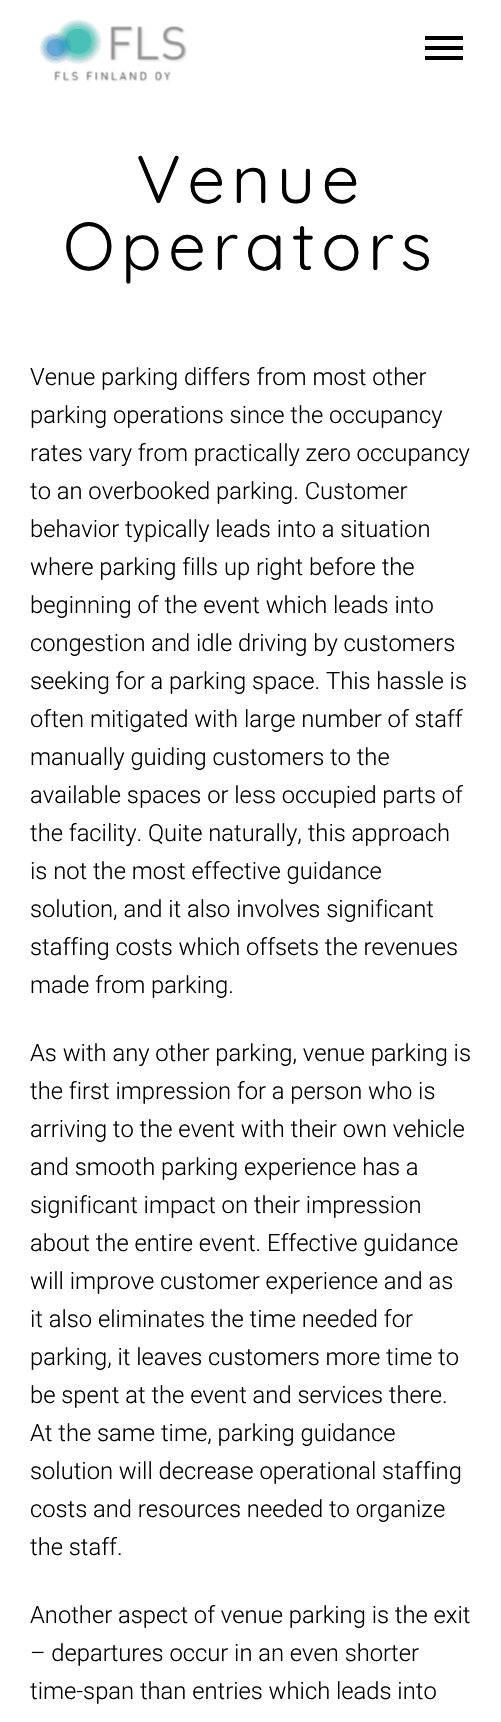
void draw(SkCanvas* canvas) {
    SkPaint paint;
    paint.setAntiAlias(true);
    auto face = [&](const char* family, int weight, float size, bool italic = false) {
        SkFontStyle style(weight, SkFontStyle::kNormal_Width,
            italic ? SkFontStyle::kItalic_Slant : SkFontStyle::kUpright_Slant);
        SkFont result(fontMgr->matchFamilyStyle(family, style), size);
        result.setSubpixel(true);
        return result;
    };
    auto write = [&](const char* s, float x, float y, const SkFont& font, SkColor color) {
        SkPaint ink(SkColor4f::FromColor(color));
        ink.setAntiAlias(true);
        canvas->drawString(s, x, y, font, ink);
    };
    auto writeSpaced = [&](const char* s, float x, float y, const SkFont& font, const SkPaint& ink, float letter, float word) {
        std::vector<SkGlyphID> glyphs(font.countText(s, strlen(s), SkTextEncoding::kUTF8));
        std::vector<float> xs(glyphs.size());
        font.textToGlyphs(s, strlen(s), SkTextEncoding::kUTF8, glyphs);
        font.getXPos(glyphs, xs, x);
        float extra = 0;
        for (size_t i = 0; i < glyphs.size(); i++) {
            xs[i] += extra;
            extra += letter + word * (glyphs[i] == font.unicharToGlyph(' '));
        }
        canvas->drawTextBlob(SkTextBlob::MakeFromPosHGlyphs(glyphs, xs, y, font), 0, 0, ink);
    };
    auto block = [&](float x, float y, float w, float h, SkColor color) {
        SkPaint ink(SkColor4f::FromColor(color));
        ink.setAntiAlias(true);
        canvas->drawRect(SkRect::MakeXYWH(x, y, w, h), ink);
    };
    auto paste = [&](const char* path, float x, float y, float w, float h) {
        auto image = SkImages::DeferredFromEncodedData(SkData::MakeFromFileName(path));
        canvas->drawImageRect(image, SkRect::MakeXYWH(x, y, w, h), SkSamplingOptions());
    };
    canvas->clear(SK_ColorWHITE);
    paste("pic1.png", 39, 19, 149, 63);
    block(425, 36, 38, 4, SK_ColorBLACK);
    block(425, 46, 38, 4, SK_ColorBLACK);
    block(425, 56, 38, 4, SK_ColorBLACK);
    auto kFont1 = face("Quicksand", 400, 67.5f);
    paint.setColor(SK_ColorBLACK);
    writeSpaced("Venue", 136, 203, kFont1, paint, 6.25f, 0);
    writeSpaced("Operators", 63, 270, kFont1, paint, 6.25f, 0);
    auto kFont2 = face("Roboto", 300, 23.75f);
    write("Venue parking differs from most other", 30, 385, kFont2, SK_ColorBLACK);
    write("parking operations since the occupancy", 30, 423, kFont2, SK_ColorBLACK);
    write("rates vary from practically zero occupancy", 30, 461, kFont2, SK_ColorBLACK);
    write("to an overbooked parking. Customer", 30, 499, kFont2, SK_ColorBLACK);
    write("behavior typically leads into a situation", 30, 537, kFont2, SK_ColorBLACK);
    write("where parking fills up right before the", 30, 575, kFont2, SK_ColorBLACK);
    write("beginning of the event which leads into", 30, 613, kFont2, SK_ColorBLACK);
    write("congestion and idle driving by customers", 30, 651, kFont2, SK_ColorBLACK);
    write("seeking for a parking space. This hassle is", 30, 689, kFont2, SK_ColorBLACK);
    write("often mitigated with large number of staff", 30, 727, kFont2, SK_ColorBLACK);
    write("manually guiding customers to the", 30, 765, kFont2, SK_ColorBLACK);
    write("available spaces or less occupied parts of", 30, 803, kFont2, SK_ColorBLACK);
    write("the facility. Quite naturally, this approach", 30, 841, kFont2, SK_ColorBLACK);
    write("is not the most effective guidance", 30, 879, kFont2, SK_ColorBLACK);
    write("solution, and it also involves significant", 30, 917, kFont2, SK_ColorBLACK);
    write("staffing costs which offsets the revenues", 30, 955, kFont2, SK_ColorBLACK);
    write("made from parking.", 30, 993, kFont2, SK_ColorBLACK);
    write("As with any other parking, venue parking is", 30, 1061, kFont2, SK_ColorBLACK);
    write("the first impression for a person who is", 30, 1099, kFont2, SK_ColorBLACK);
    write("arriving to the event with their own vehicle", 30, 1137, kFont2, SK_ColorBLACK);
    write("and smooth parking experience has a", 30, 1175, kFont2, SK_ColorBLACK);
    write("significant impact on their impression", 30, 1213, kFont2, SK_ColorBLACK);
    write("about the entire event. Effective guidance", 30, 1251, kFont2, SK_ColorBLACK);
    write("will improve customer experience and as", 30, 1289, kFont2, SK_ColorBLACK);
    write("it also eliminates the time needed for", 30, 1327, kFont2, SK_ColorBLACK);
    write("parking, it leaves customers more time to", 30, 1365, kFont2, SK_ColorBLACK);
    write("be spent at the event and services there.", 30, 1403, kFont2, SK_ColorBLACK);
    write("At the same time, parking guidance", 30, 1441, kFont2, SK_ColorBLACK);
    write("solution will decrease operational staffing", 30, 1479, kFont2, SK_ColorBLACK);
    write("costs and resources needed to organize", 30, 1517, kFont2, SK_ColorBLACK);
    write("the staff.", 30, 1555, kFont2, SK_ColorBLACK);
    write("Another aspect of venue parking is the exit", 30, 1623, kFont2, SK_ColorBLACK);
    write("– departures occur in an even shorter", 30, 1661, kFont2, SK_ColorBLACK);
    write("time-span than entries which leads into", 30, 1699, kFont2, SK_ColorBLACK);
}
